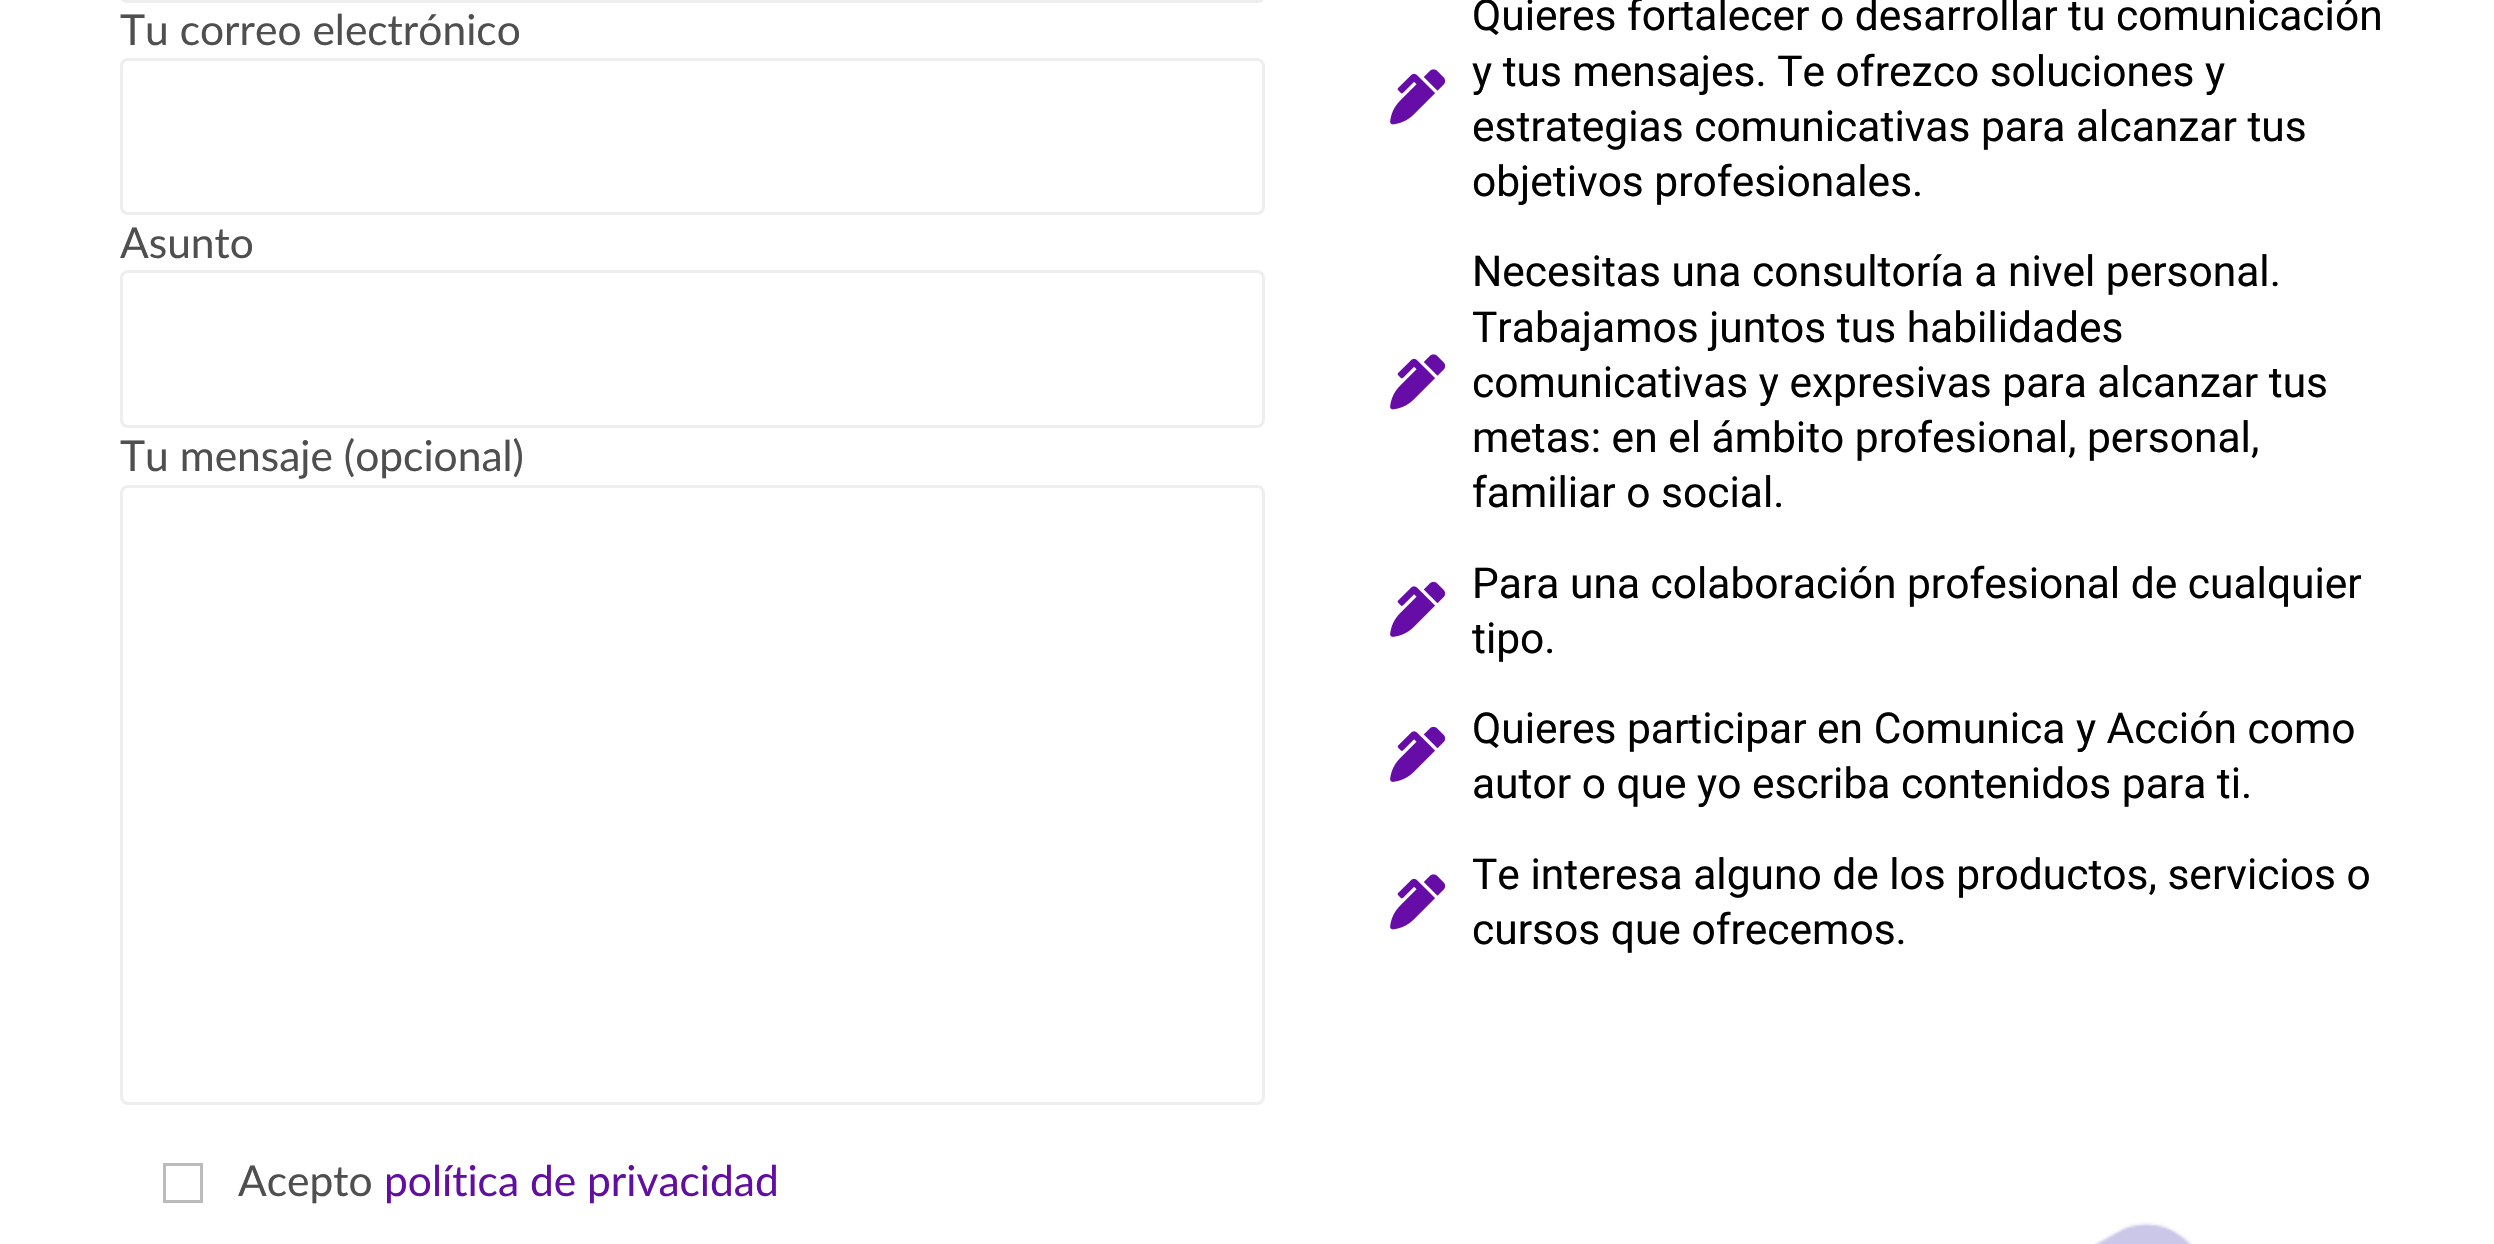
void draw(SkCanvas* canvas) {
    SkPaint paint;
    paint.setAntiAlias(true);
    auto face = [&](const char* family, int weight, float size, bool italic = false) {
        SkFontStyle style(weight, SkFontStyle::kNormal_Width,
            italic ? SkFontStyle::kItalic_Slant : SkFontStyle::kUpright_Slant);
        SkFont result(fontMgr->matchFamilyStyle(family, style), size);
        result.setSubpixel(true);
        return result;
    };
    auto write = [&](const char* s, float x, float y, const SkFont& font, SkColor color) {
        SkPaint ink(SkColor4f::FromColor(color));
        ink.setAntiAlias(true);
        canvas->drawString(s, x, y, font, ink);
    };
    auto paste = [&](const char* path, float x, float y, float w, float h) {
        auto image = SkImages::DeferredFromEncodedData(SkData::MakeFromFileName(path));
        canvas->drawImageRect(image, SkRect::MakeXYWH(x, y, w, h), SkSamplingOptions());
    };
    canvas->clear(SK_ColorWHITE);
    paint.setStyle(SkPaint::kStroke_Style);
    paint.setStrokeWidth(3);
    paint.setColor(SkColorSetRGB(238, 238, 238));
    canvas->drawRoundRect(SkRect::MakeXYWH(121.5f, -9.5f, 1142, 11), 6.5f, 6.5f, paint);
    auto kFont1 = face("Lato", 400, 42.5f);
    write("Tu correo electrónico", 120, 45, kFont1, SkColorSetRGB(79, 79, 79));
    canvas->drawRoundRect(SkRect::MakeXYWH(121.5f, 59.5f, 1142, 154), 6.5f, 6.5f, paint);
    write("Asunto", 120, 258, kFont1, SkColorSetRGB(79, 79, 79));
    canvas->drawRoundRect(SkRect::MakeXYWH(121.5f, 271.5f, 1142, 155), 6.5f, 6.5f, paint);
    write("Tu mensaje (opcional)", 120, 471, kFont1, SkColorSetRGB(79, 79, 79));
    canvas->drawRoundRect(SkRect::MakeXYWH(121.5f, 486.5f, 1142, 617), 6.5f, 6.5f, paint);
    paint.setColor(SkColorSetRGB(187, 187, 187));
    canvas->drawRect(SkRect::MakeXYWH(164.5f, 1164.5f, 37, 37), paint);
    write("Acepto", 238, 1196, kFont1, SkColorSetRGB(79, 79, 79));
    write("política de privacidad", 384, 1196, kFont1, SkColorSetRGB(98, 14, 161));
    paste("pic1.png", 1390, 69, 56, 56);
    auto kFont2 = face("Roboto", 400, 42.5f);
    write("Quieres fortalecer o desarrollar tu comunicación", 1472, 30, kFont2, SkColorSetRGB(2, 1, 2));
    write("y tus mensajes. Te ofrezco soluciones y", 1472, 86, kFont2, SkColorSetRGB(2, 1, 2));
    write("estrategias comunicativas para alcanzar tus", 1472, 141, kFont2, SkColorSetRGB(2, 1, 2));
    write("objetivos profesionales.", 1472, 196, kFont2, SkColorSetRGB(2, 1, 2));
    paste("pic1.png", 1390, 354, 56, 56);
    write("Necesitas una consultoría a nivel personal.", 1472, 286, kFont2, SkColorSetRGB(2, 1, 2));
    write("Trabajamos juntos tus habilidades", 1472, 342, kFont2, SkColorSetRGB(2, 1, 2));
    write("comunicativas y expresivas para alcanzar tus", 1472, 397, kFont2, SkColorSetRGB(2, 1, 2));
    write("metas: en el ámbito profesional, personal,", 1472, 452, kFont2, SkColorSetRGB(2, 1, 2));
    write("familiar o social.", 1472, 507, kFont2, SkColorSetRGB(2, 1, 2));
    paste("pic2.png", 1390, 581, 56, 56);
    write("Para una colaboración profesional de cualquier", 1472, 598, kFont2, SkColorSetRGB(2, 1, 2));
    write("tipo.", 1472, 653, kFont2, SkColorSetRGB(2, 1, 2));
    paste("pic2.png", 1390, 726, 56, 56);
    write("Quieres participar en Comunica y Acción como", 1472, 743, kFont2, SkColorSetRGB(2, 1, 2));
    write("autor o que yo escriba contenidos para ti.", 1472, 798, kFont2, SkColorSetRGB(2, 1, 2));
    paste("pic1.png", 1390, 874, 56, 56);
    write("Te interesa alguno de los productos, servicios o", 1472, 889, kFont2, SkColorSetRGB(2, 1, 2));
    write("cursos que ofrecemos.", 1472, 944, kFont2, SkColorSetRGB(2, 1, 2));
    paste("pic3.png", 2094, 1222, 98, 22);
}
